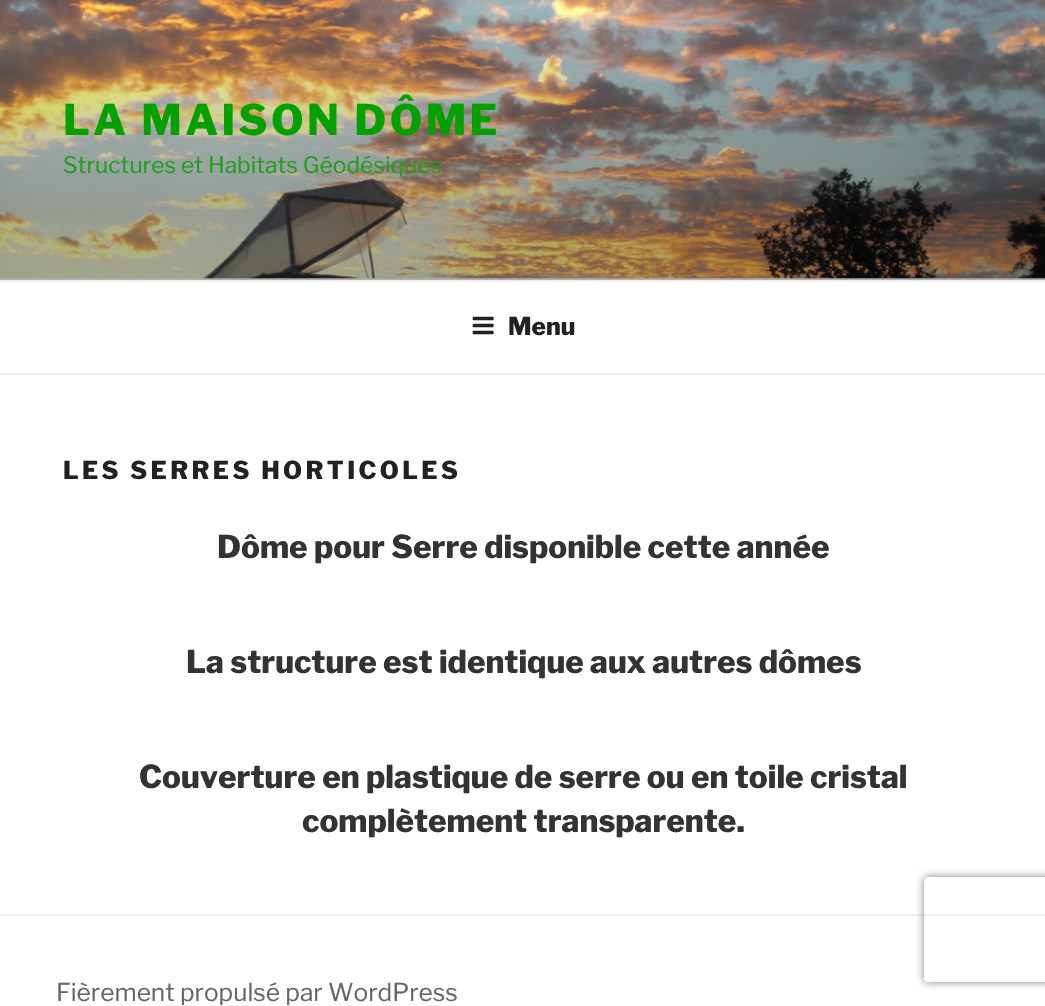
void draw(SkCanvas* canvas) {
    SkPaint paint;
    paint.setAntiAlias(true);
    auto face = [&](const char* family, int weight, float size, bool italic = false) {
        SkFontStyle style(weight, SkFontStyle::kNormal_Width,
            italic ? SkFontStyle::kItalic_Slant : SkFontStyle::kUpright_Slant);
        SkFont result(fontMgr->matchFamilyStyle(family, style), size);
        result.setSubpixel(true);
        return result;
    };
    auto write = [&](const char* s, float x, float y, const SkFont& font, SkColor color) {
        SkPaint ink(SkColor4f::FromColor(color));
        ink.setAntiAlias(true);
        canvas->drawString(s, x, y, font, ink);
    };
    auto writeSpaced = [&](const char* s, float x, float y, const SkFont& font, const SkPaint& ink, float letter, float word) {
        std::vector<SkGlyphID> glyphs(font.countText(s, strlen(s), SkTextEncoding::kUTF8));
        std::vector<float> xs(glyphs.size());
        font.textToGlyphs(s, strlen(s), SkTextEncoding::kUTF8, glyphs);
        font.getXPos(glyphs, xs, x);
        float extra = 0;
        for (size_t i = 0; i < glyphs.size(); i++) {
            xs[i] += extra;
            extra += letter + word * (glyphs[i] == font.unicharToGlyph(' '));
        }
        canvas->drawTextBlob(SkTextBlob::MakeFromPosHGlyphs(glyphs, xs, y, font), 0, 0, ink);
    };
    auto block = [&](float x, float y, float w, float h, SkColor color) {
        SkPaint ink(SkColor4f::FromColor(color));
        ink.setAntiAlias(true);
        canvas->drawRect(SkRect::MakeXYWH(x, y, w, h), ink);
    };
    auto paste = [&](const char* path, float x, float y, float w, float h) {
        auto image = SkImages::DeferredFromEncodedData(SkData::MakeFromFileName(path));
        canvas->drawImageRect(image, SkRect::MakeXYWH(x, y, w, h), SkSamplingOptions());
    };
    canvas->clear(SK_ColorWHITE);
    block(0, 278, 1045, 2, SkColorSetRGB(250, 250, 250));
    paste("pic1.png", 0, 0, 1045, 279);
    {
        const SkColor colors[] = {SkColorSetARGB(0, 0, 0, 0), SkColorSetARGB(77, 0, 0, 0), SkColorSetARGB(77, 0, 0, 0)};
        const float stops[] = {0, 0.75f, 1};
        const SkPoint ends[] = {{523, 0}, {523, 280}};
        paint.setShader(SkGradientShader::MakeLinear(ends, colors, stops, 3, SkTileMode::kClamp));
        paint.setAlpha(255);
    }
    canvas->drawRect(SkRect::MakeXYWH(0, 15, 1045, 265), paint);
    auto kFont1 = face("Libre Franklin", 800, 42);
    paint.setShader(nullptr);
    paint.setColor(SkColorSetRGB(2, 160, 0));
    writeSpaced("LA MAISON DÔME", 63, 135, kFont1, paint, 3.4f, 0);
    auto kFont2 = face("Libre Franklin", 400, 22.75f);
    write("Structures et Habitats Géodésiques", 63, 173, kFont2, SkColorSetRGB(32, 159, 30));
    block(0, 280, 1045, 2, SkColorSetRGB(238, 238, 238));
    block(0, 373, 1045, 2, SkColorSetRGB(238, 238, 238));
    paste("pic2.png", 472, 316, 22, 19);
    auto kFont3 = face("Libre Franklin", 800, 24.5f);
    write("Menu", 508, 335, kFont3, SkColorSetRGB(34, 34, 34));
    paint.setColor(SkColorSetRGB(34, 34, 34));
    writeSpaced("LES SERRES HORTICOLES", 63, 479, kFont3, paint, 3.4f, 0);
    auto kFont4 = face("Libre Franklin", 800, 31.5f);
    write("Dôme pour Serre disponible cette année", 217, 558, kFont4, SkColorSetRGB(51, 51, 51));
    write("La structure est identique aux autres dômes", 186, 673, kFont4, SkColorSetRGB(51, 51, 51));
    write("Couverture en plastique de serre ou en toile cristal", 139, 788, kFont4, SkColorSetRGB(51, 51, 51));
    write("complètement transparente.", 302, 832, kFont4, SkColorSetRGB(51, 51, 51));
    block(0, 914, 1045, 2, SkColorSetRGB(238, 238, 238));
    auto kFont5 = face("Libre Franklin", 400, 24.5f);
    write("Fièrement propulsé par WordPress", 56, 1001, kFont5, SkColorSetRGB(102, 102, 102));
    canvas->save();
    canvas->clipPath(SkPathBuilder(SkPathFillType::kEvenOdd).moveTo(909, 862).lineTo(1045, 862).lineTo(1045, 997).lineTo(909, 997).close().moveTo(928, 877).lineTo(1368, 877).cubicTo(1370, 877, 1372, 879, 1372, 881).lineTo(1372, 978).cubicTo(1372, 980, 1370, 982, 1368, 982).lineTo(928, 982).cubicTo(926, 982, 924, 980, 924, 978).lineTo(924, 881).cubicTo(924, 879, 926, 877, 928, 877).close().detach(), true);
    paint.setColor(SkColorSetRGB(128, 128, 128));
    paint.setMaskFilter(SkMaskFilter::MakeBlur(kNormal_SkBlurStyle, 4.5f));
    canvas->drawRoundRect(SkRect::MakeXYWH(924, 877, 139, 105), 4, 4, paint);
    paint.setMaskFilter(nullptr);
    canvas->restore();
}
